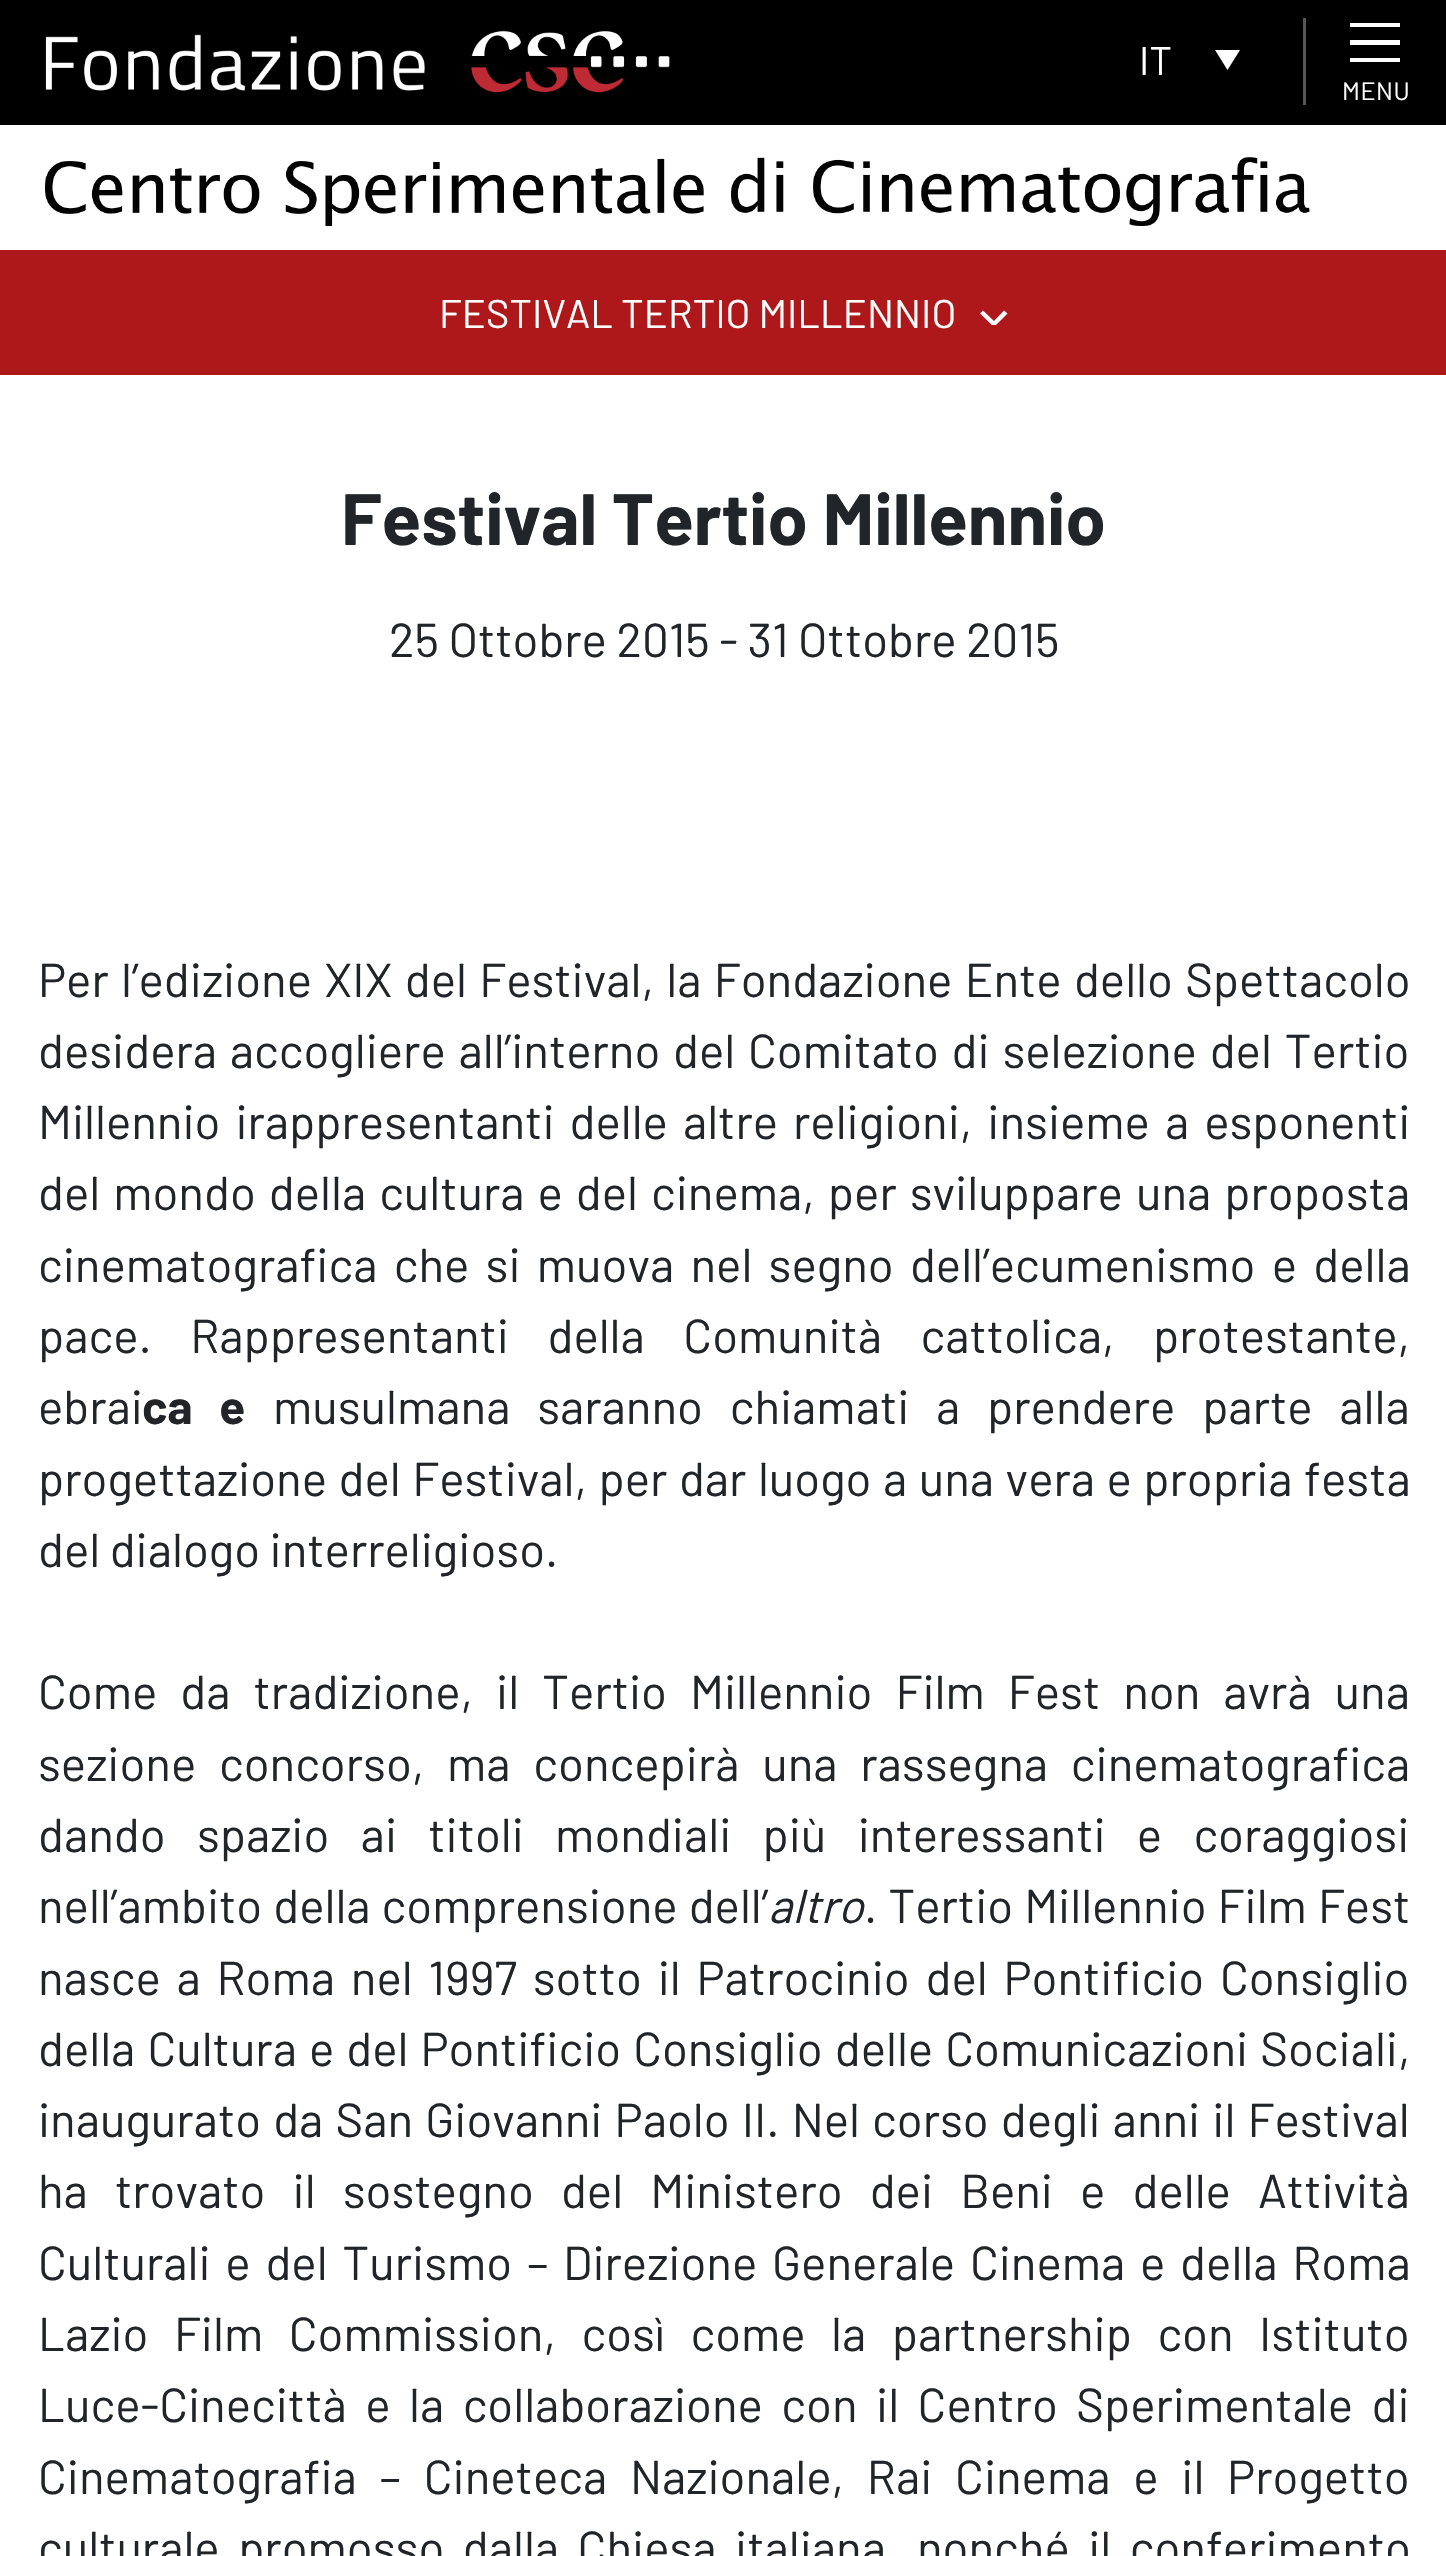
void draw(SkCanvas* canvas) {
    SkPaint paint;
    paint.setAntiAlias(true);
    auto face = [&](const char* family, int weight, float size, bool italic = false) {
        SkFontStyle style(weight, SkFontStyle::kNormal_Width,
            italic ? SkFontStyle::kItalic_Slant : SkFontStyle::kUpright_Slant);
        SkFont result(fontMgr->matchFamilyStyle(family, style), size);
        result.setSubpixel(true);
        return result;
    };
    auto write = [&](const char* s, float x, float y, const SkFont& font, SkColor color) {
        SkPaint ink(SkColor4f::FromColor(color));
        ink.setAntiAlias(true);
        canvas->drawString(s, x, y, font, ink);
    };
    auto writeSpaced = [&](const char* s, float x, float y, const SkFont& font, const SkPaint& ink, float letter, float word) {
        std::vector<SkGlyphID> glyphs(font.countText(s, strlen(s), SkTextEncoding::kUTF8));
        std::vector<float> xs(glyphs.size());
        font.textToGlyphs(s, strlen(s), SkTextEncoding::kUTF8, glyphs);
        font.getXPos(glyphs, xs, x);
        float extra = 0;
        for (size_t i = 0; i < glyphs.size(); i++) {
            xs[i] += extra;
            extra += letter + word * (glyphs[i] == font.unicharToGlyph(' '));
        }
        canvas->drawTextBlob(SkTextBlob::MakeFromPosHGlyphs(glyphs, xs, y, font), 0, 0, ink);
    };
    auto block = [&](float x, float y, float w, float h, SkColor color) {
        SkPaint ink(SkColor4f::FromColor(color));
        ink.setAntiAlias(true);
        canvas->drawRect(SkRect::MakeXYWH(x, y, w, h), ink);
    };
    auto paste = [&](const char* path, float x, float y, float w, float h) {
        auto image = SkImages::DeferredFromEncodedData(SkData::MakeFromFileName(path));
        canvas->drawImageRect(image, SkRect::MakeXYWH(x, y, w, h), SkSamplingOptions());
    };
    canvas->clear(SK_ColorWHITE);
    block(0, 0, 1446, 125, SK_ColorBLACK);
    paste("pic1.png", 45, 31, 625, 62);
    auto kFont1 = face("Barlow", 400, 40);
    write("IT", 1139, 75, kFont1, SK_ColorWHITE);
    paint.setColor(SK_ColorWHITE);
    canvas->drawPath(SkPathBuilder().moveTo(1215, 50).lineTo(1240, 50).lineTo(1227.5f, 70).close().detach(), paint);
    block(1303, 18, 3, 87, SkColorSetRGB(86, 86, 86));
    block(1350, 23, 50, 4, SK_ColorWHITE);
    block(1350, 40, 50, 5, SK_ColorWHITE);
    block(1350, 58, 50, 4, SK_ColorWHITE);
    auto kFont2 = face("Barlow", 400, 25);
    writeSpaced("MENU", 1342, 100, kFont2, paint, 0.5f, 0);
    paste("pic2.png", 45, 157, 1265, 69);
    block(0, 250, 1446, 125, SkColorSetRGB(174, 24, 26));
    write("FESTIVAL TERTIO MILLENNIO", 439, 328, kFont1, SK_ColorWHITE);
    canvas->save();
    canvas->clipRect(SkRect::MakeXYWH(980, 310, 28, 15));
    canvas->drawPath(SkPathBuilder().moveTo(1004, 310.5f).lineTo(994, 321).lineTo(983, 310.5f).lineTo(980, 313.5f).lineTo(994, 327).lineTo(1007.5f, 313.5f).close().detach(), paint);
    canvas->restore();
    auto kFont3 = face("Barlow", 700, 72.5f);
    write("Festival Tertio Millennio", 341, 545, kFont3, SkColorSetRGB(33, 37, 41));
    auto kFont4 = face("Barlow", 400, 47.5f);
    write("25 Ottobre 2015 - 31 Ottobre 2015", 389, 657, kFont4, SkColorSetRGB(33, 37, 41));
    paint.setColor(SkColorSetRGB(33, 37, 41));
    writeSpaced("Per l’edizione XIX del Festival, la Fondazione Ente dello Spettacolo", 38, 997, kFont4, paint, 0, 2.75f);
    writeSpaced("desidera accogliere all’interno del Comitato di selezione del Tertio", 38, 1068, kFont4, paint, 0, 3.25f);
    writeSpaced("Millennio irappresentanti delle altre religioni, insieme a esponenti", 38, 1139, kFont4, paint, 0, 5.5f);
    writeSpaced("del mondo della cultura e del cinema, per sviluppare una proposta", 38, 1210, kFont4, paint, 0, 3.5f);
    writeSpaced("cinematografica che si muova nel segno dell’ecumenismo e della", 38, 1282, kFont4, paint, 0, 6.75f);
    writeSpaced("pace. Rappresentanti della Comunità cattolica, protestante,", 38, 1353, kFont4, paint, 0, 29);
    write("ebrai", 38, 1424, kFont4, SkColorSetRGB(33, 37, 41));
    auto kFont5 = face("Barlow", 700, 47.5f);
    writeSpaced("ca e", 142, 1424, kFont5, paint, 0, 17.25f);
    writeSpaced("musulmana saranno chiamati a prendere parte alla", 273, 1424, kFont4, paint, 0, 17.25f);
    writeSpaced("progettazione del Festival, per dar luogo a una vera e propria festa", 38, 1496, kFont4, paint, 0, 2);
    write("del dialogo interreligioso.", 38, 1567, kFont4, SkColorSetRGB(33, 37, 41));
    writeSpaced("Come da tradizione, il Tertio Millennio Film Fest non avrà una", 38, 1709, kFont4, paint, 0, 13.5f);
    writeSpaced("sezione concorso, ma concepirà una rassegna cinematografica", 38, 1781, kFont4, paint, 0, 13.25f);
    writeSpaced("dando spazio ai titoli mondiali più interessanti e coraggiosi", 38, 1852, kFont4, paint, 0, 21.75f);
    writeSpaced("nell’ambito della comprensione dell’", 38, 1923, kFont4, paint, 0, 1.5f);
    auto kFont6 = face("Barlow", 400, 47.5f, true);
    write("altro", 768, 1923, kFont6, SkColorSetRGB(33, 37, 41));
    writeSpaced(". Tertio Millennio Film Fest", 864, 1923, kFont4, paint, 0, 1.5f);
    writeSpaced("nasce a Roma nel 1997 sotto il Patrocinio del Pontificio Consiglio", 38, 1995, kFont4, paint, 0, 6.25f);
    writeSpaced("della Cultura e del Pontificio Consiglio delle Comunicazioni Sociali,", 38, 2066, kFont4, paint, 0, 2.5f);
    writeSpaced("inaugurato da San Giovanni Paolo II. Nel corso degli anni il Festival", 38, 2137, kFont4, paint, 0, 2.6f);
    writeSpaced("ha trovato il sostegno del Ministero dei Beni e delle Attività", 38, 2208, kFont4, paint, 0, 17.6f);
    writeSpaced("Culturali e del Turismo – Direzione Generale Cinema e della Roma", 38, 2280, kFont4, paint, 0, 5.25f);
    writeSpaced("Lazio Film Commission, così come la partnership con Istituto", 38, 2351, kFont4, paint, 0, 16);
    writeSpaced("Luce-Cinecittà e la collaborazione con il Centro Sperimentale di", 38, 2422, kFont4, paint, 0, 9);
    writeSpaced("Cinematografia – Cineteca Nazionale, Rai Cinema e il Progetto", 38, 2494, kFont4, paint, 0, 13.25f);
    writeSpaced("culturale promosso dalla Chiesa italiana, nonché il conferimento", 38, 2565, kFont4, paint, 0, 9);
}
